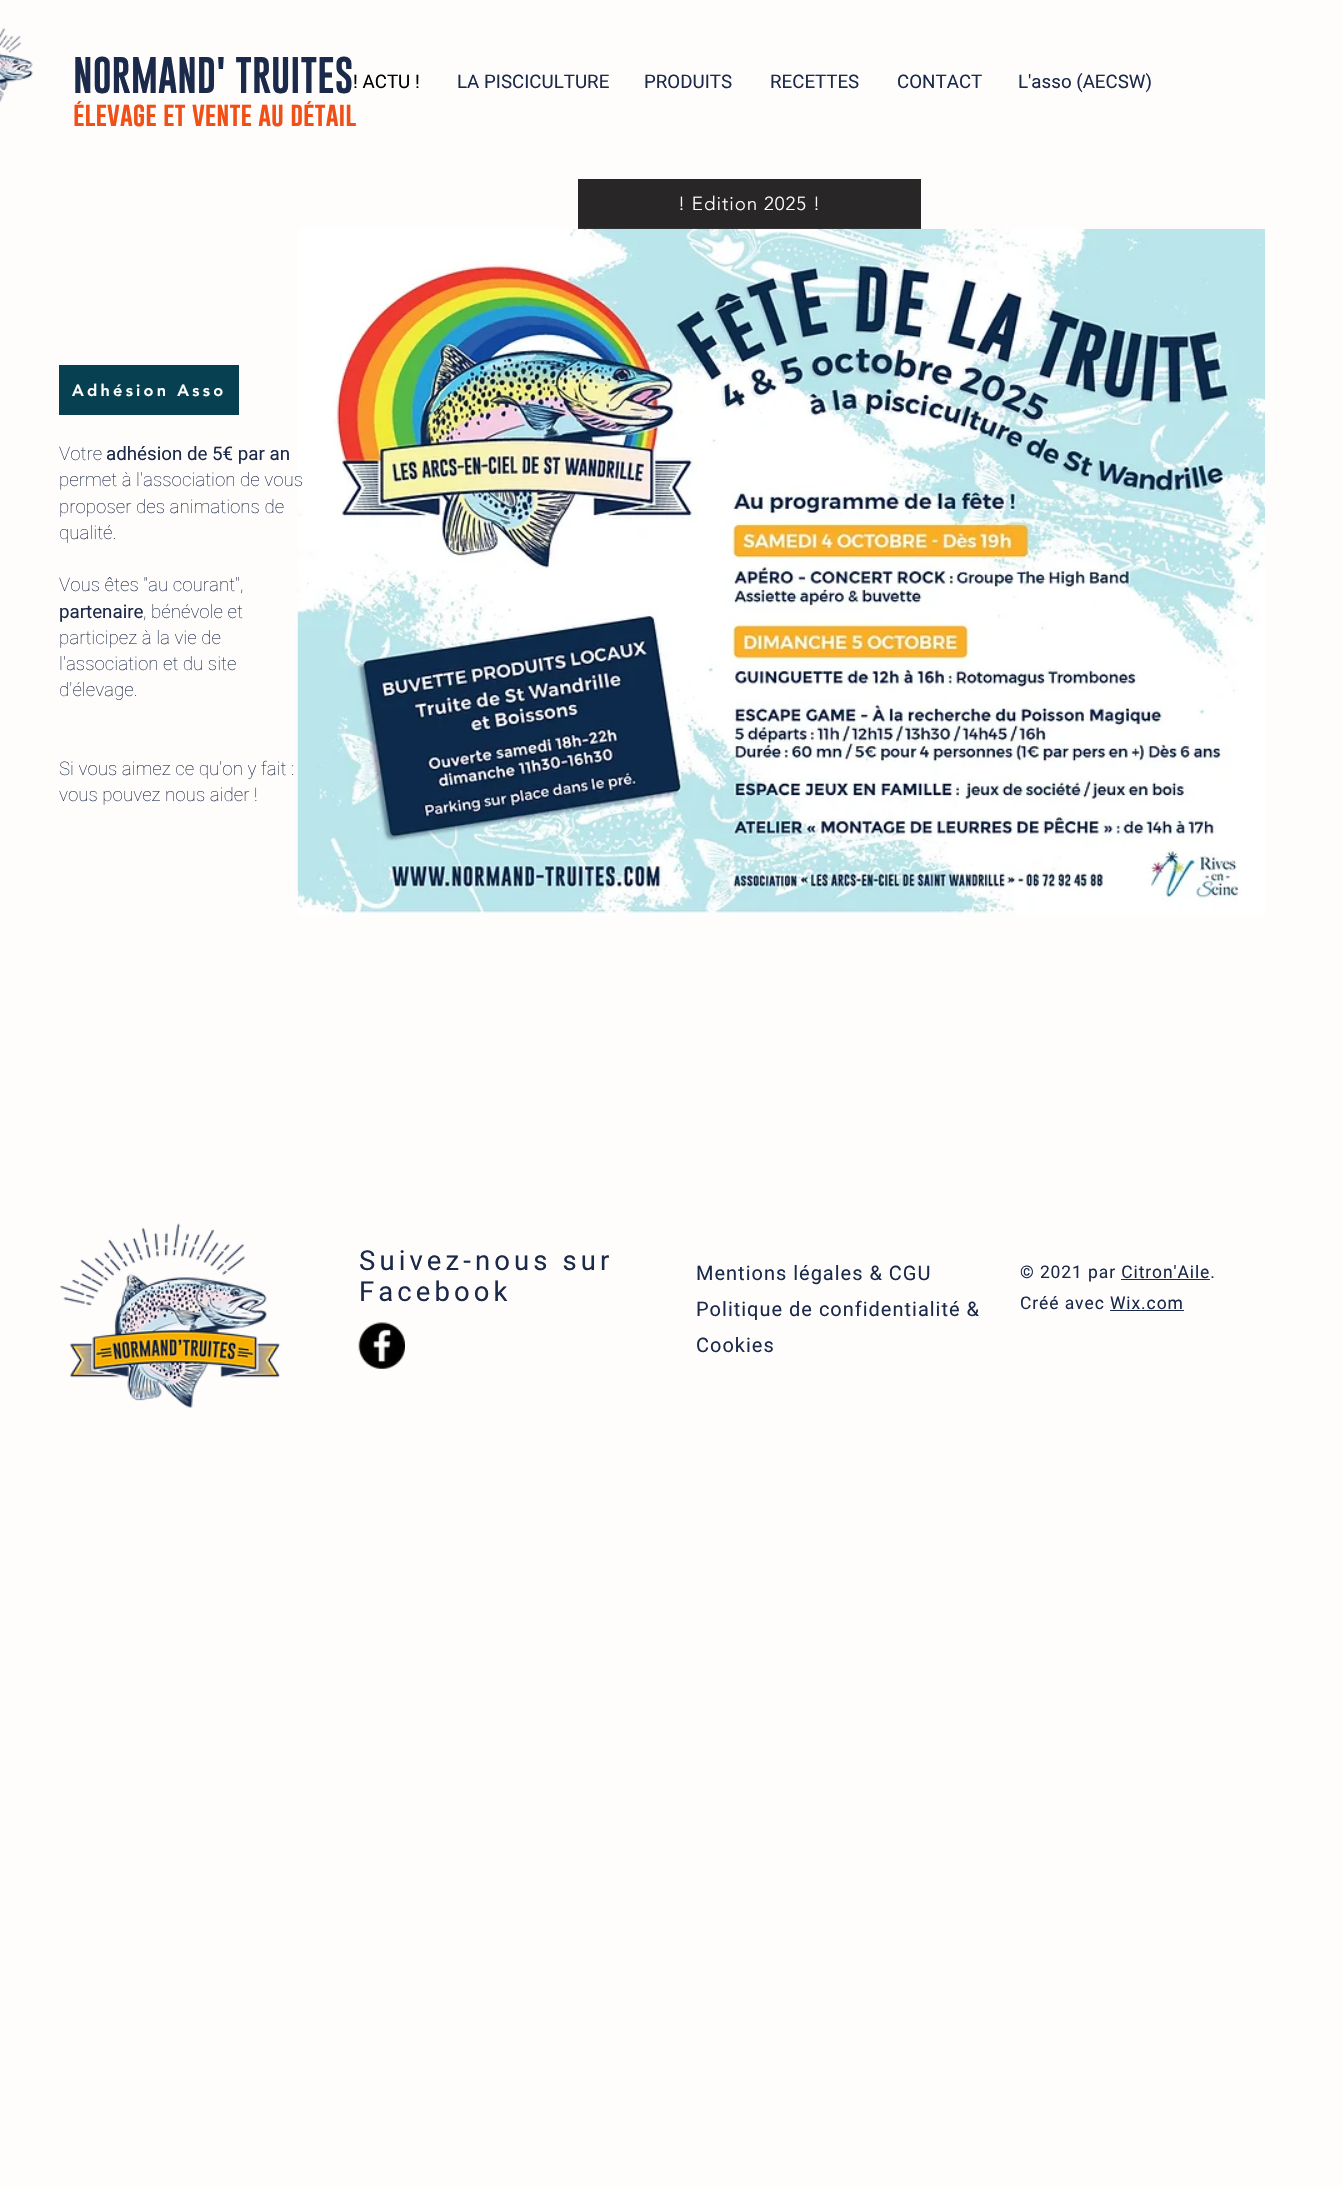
void draw(SkCanvas* canvas) {
    SkPaint paint;
    paint.setAntiAlias(true);
    auto face = [&](const char* family, int weight, float size, bool italic = false) {
        SkFontStyle style(weight, SkFontStyle::kNormal_Width,
            italic ? SkFontStyle::kItalic_Slant : SkFontStyle::kUpright_Slant);
        SkFont result(fontMgr->matchFamilyStyle(family, style), size);
        result.setSubpixel(true);
        return result;
    };
    auto write = [&](const char* s, float x, float y, const SkFont& font, SkColor color) {
        SkPaint ink(SkColor4f::FromColor(color));
        ink.setAntiAlias(true);
        canvas->drawString(s, x, y, font, ink);
    };
    auto writeSpaced = [&](const char* s, float x, float y, const SkFont& font, const SkPaint& ink, float letter, float word) {
        std::vector<SkGlyphID> glyphs(font.countText(s, strlen(s), SkTextEncoding::kUTF8));
        std::vector<float> xs(glyphs.size());
        font.textToGlyphs(s, strlen(s), SkTextEncoding::kUTF8, glyphs);
        font.getXPos(glyphs, xs, x);
        float extra = 0;
        for (size_t i = 0; i < glyphs.size(); i++) {
            xs[i] += extra;
            extra += letter + word * (glyphs[i] == font.unicharToGlyph(' '));
        }
        canvas->drawTextBlob(SkTextBlob::MakeFromPosHGlyphs(glyphs, xs, y, font), 0, 0, ink);
    };
    auto block = [&](float x, float y, float w, float h, SkColor color) {
        SkPaint ink(SkColor4f::FromColor(color));
        ink.setAntiAlias(true);
        canvas->drawRect(SkRect::MakeXYWH(x, y, w, h), ink);
    };
    auto paste = [&](const char* path, float x, float y, float w, float h) {
        auto image = SkImages::DeferredFromEncodedData(SkData::MakeFromFileName(path));
        canvas->drawImageRect(image, SkRect::MakeXYWH(x, y, w, h), SkSamplingOptions());
    };
    canvas->clear(SkColorSetRGB(255, 253, 251));
    paste("pic1.png", 0, 28, 33, 75);
    auto kFont1 = face("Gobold", 700, 37.5f);
    write("NORMAND' TRUITES", 73, 93, kFont1, SkColorSetRGB(27, 42, 74));
    auto kFont2 = face("Gobold", 700, 25);
    write("élevage et vente au détail", 73, 126, kFont2, SkColorSetRGB(240, 79, 23));
    auto kFont3 = face("Roboto", 400, 18.75f);
    write("! ACTU !", 353, 88, kFont3, SK_ColorBLACK);
    write("LA PISCICULTURE", 457, 88, kFont3, SkColorSetRGB(27, 42, 74));
    write("PRODUITS", 644, 88, kFont3, SkColorSetRGB(27, 42, 74));
    write("RECETTES", 770, 88, kFont3, SkColorSetRGB(27, 42, 74));
    write("CONTACT", 897, 88, kFont3, SkColorSetRGB(27, 42, 74));
    write("L'asso (AECSW)", 1018, 88, kFont3, SkColorSetRGB(27, 42, 74));
    block(578, 179, 343, 50, SkColorSetRGB(40, 38, 38));
    auto kFont4 = face("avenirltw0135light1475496", 300, 18.75f);
    paint.setColor(SkColorSetRGB(255, 253, 251));
    writeSpaced("! Edition 2025 !", 678, 210, kFont4, paint, 1, 0);
    block(59, 365, 180, 50, SkColorSetRGB(7, 65, 81));
    auto kFont5 = face("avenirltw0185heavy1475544", 900, 16.25f);
    writeSpaced("Adhésion Asso", 72, 396, kFont5, paint, 3.25f, 0);
    paste("pic2.png", 297, 228, 968, 687);
    auto kFont6 = face("Roboto", 100, 18.75f);
    write("Votre", 59, 460, kFont6, SkColorSetRGB(27, 42, 74));
    write("adhésion de 5€ par an", 106, 460, kFont3, SkColorSetRGB(27, 42, 74));
    write("permet à l'association de vous", 59, 486, kFont6, SkColorSetRGB(27, 42, 74));
    write("proposer des animations de", 59, 513, kFont6, SkColorSetRGB(27, 42, 74));
    write("qualité.", 59, 539, kFont6, SkColorSetRGB(27, 42, 74));
    write("Vous êtes \"au courant\",", 59, 591, kFont6, SkColorSetRGB(27, 42, 74));
    write("partenaire", 59, 618, kFont3, SkColorSetRGB(27, 42, 74));
    write(", bénévole et", 143, 618, kFont6, SkColorSetRGB(27, 42, 74));
    write("participez à la vie de", 59, 644, kFont6, SkColorSetRGB(27, 42, 74));
    write("l'association et du site", 59, 670, kFont6, SkColorSetRGB(27, 42, 74));
    write("d'élevage.", 59, 696, kFont6, SkColorSetRGB(27, 42, 74));
    write("Si vous aimez ce qu'on y fait :", 59, 775, kFont6, SkColorSetRGB(27, 42, 74));
    write("vous pouvez nous aider !", 59, 801, kFont6, SkColorSetRGB(27, 42, 74));
    paste("pic3.png", 60, 1223, 221, 185);
    auto kFont7 = face("Roboto", 400, 27.5f);
    paint.setColor(SkColorSetRGB(27, 42, 74));
    writeSpaced("Suivez-nous sur", 359, 1270, kFont7, paint, 4.1f, 0);
    writeSpaced("Facebook", 359, 1301, kFont7, paint, 4.1f, 0);
    paste("pic4.png", 358, 1322, 47, 47);
    auto kFont8 = face("Roboto", 400, 20);
    writeSpaced("Mentions légales & CGU", 696, 1280, kFont8, paint, 1, 0);
    writeSpaced("Politique de confidentialité &", 696, 1316, kFont8, paint, 1, 0);
    writeSpaced("Cookies", 696, 1352, kFont8, paint, 1, 0);
    auto kFont9 = face("Roboto", 400, 17.5f);
    writeSpaced("© 2021 par Citron'Aile.", 1020, 1278, kFont9, paint, 0.9f, 0);
    block(1121, 1279, 89, 1, SkColorSetRGB(27, 42, 74));
    writeSpaced("Créé avec Wix.com", 1020, 1309, kFont9, paint, 0.9f, 0);
    block(1110, 1310, 74, 1, SkColorSetRGB(27, 42, 74));
}
